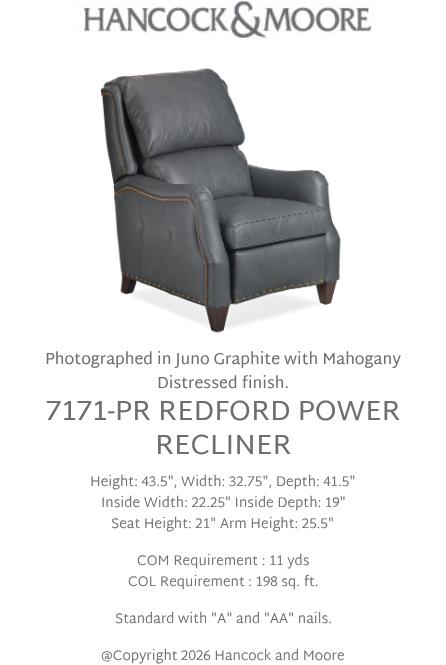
void draw(SkCanvas* canvas) {
    SkPaint paint;
    paint.setAntiAlias(true);
    auto face = [&](const char* family, int weight, float size, bool italic = false) {
        SkFontStyle style(weight, SkFontStyle::kNormal_Width,
            italic ? SkFontStyle::kItalic_Slant : SkFontStyle::kUpright_Slant);
        SkFont result(fontMgr->matchFamilyStyle(family, style), size);
        result.setSubpixel(true);
        return result;
    };
    auto write = [&](const char* s, float x, float y, const SkFont& font, SkColor color) {
        SkPaint ink(SkColor4f::FromColor(color));
        ink.setAntiAlias(true);
        canvas->drawString(s, x, y, font, ink);
    };
    auto paste = [&](const char* path, float x, float y, float w, float h) {
        auto image = SkImages::DeferredFromEncodedData(SkData::MakeFromFileName(path));
        canvas->drawImageRect(image, SkRect::MakeXYWH(x, y, w, h), SkSamplingOptions());
    };
    canvas->clear(SK_ColorWHITE);
    paste("pic1.png", 77, 0, 296, 41);
    paste("pic2.png", 100, 68, 241, 265);
    auto kFont1 = face("Martel Sans", 400, 16);
    write("Photographed in Juno Graphite with Mahogany", 45, 364, kFont1, SkColorSetRGB(109, 110, 113));
    write("Distressed finish.", 157, 388, kFont1, SkColorSetRGB(109, 110, 113));
    auto kFont2 = face("Martel Sans", 400, 28);
    write("7171-PR REDFORD POWER", 46, 420, kFont2, SkColorSetRGB(109, 110, 113));
    write("RECLINER", 155, 454, kFont2, SkColorSetRGB(109, 110, 113));
    auto kFont3 = face("Martel Sans", 300, 14);
    write("Height: 43.5\", Width: 32.75\", Depth: 41.5\"", 90, 486, kFont3, SkColorSetRGB(109, 110, 113));
    write("Inside Width: 22.25\" Inside Depth: 19\"", 101, 507, kFont3, SkColorSetRGB(109, 110, 113));
    write("Seat Height: 21\" Arm Height: 25.5\"", 111, 528, kFont3, SkColorSetRGB(109, 110, 113));
    write("COM Requirement : 11 yds", 137, 565, kFont3, SkColorSetRGB(109, 110, 113));
    write("COL Requirement : 198 sq. ft.", 128, 586, kFont3, SkColorSetRGB(109, 110, 113));
    write("Standard with \"A\" and \"AA\" nails.", 115, 623, kFont3, SkColorSetRGB(109, 110, 113));
    write("@Copyright 2026 Hancock and Moore", 101, 660, kFont3, SkColorSetRGB(109, 110, 113));
}
